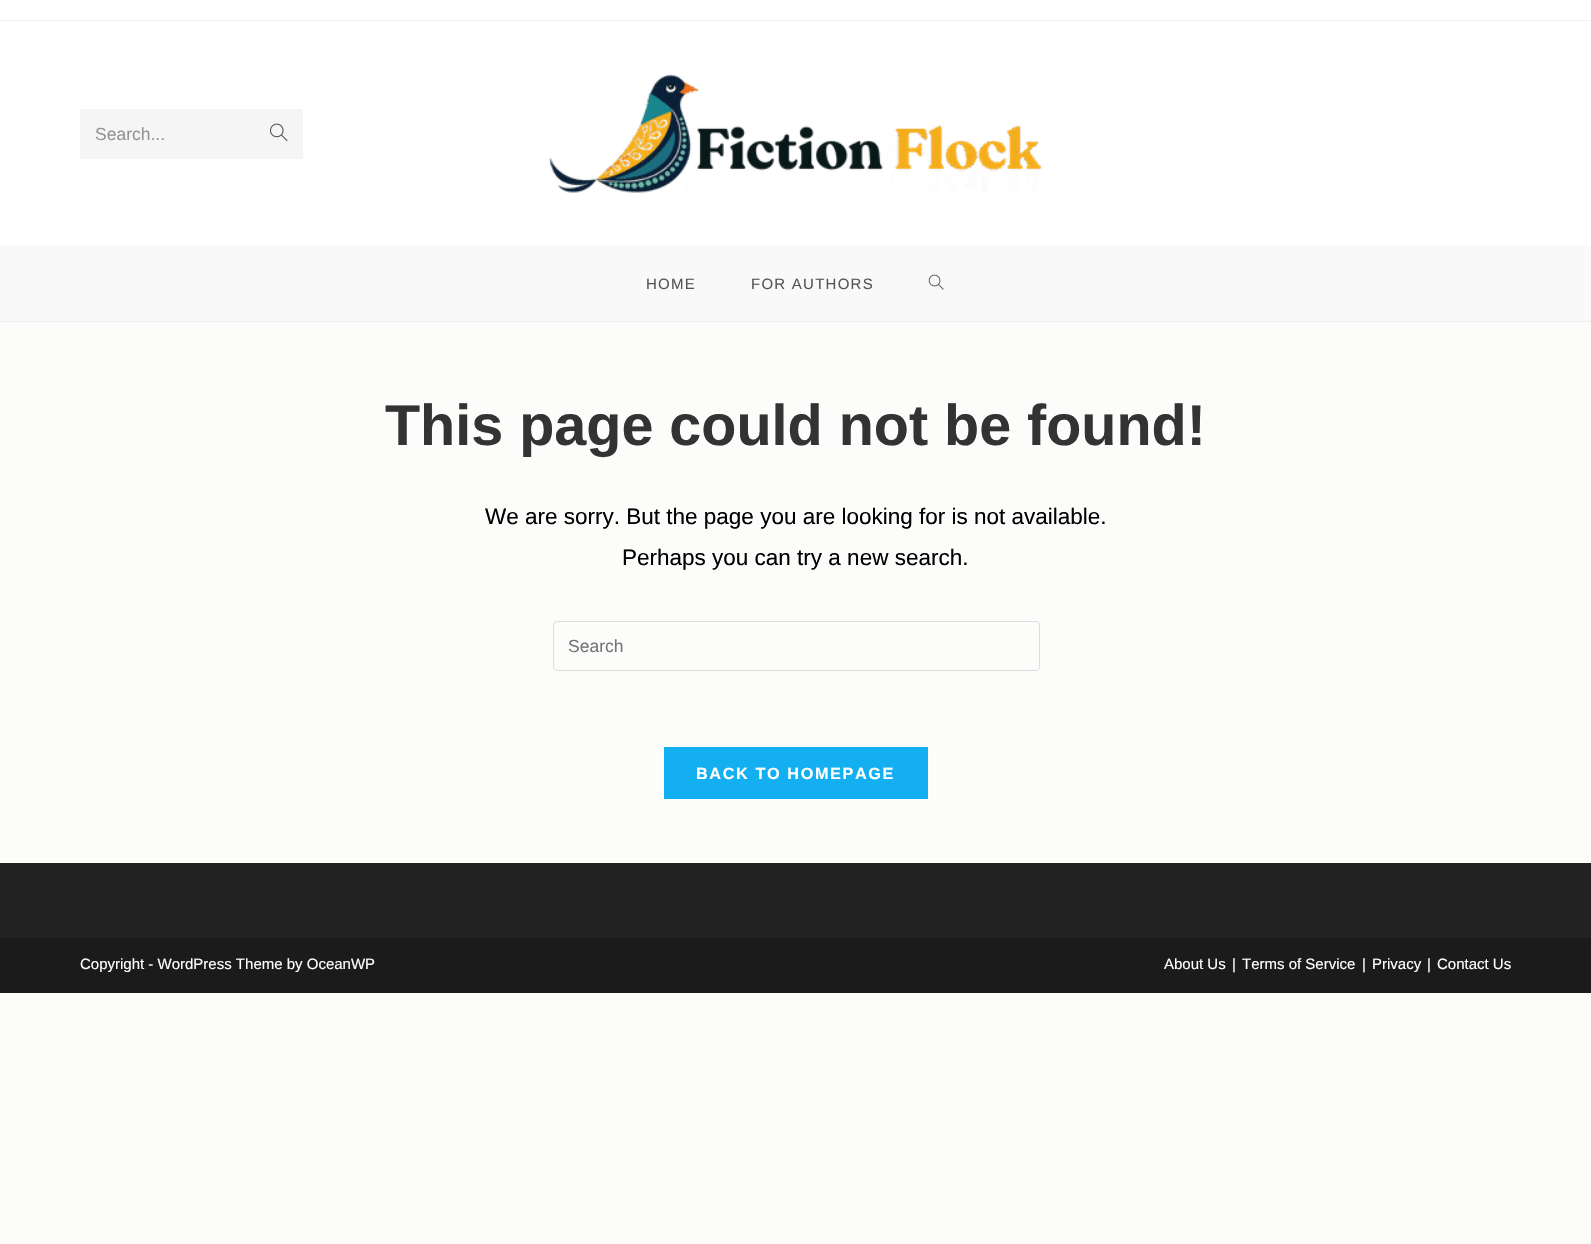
void draw(SkCanvas* canvas) {
    SkPaint paint;
    paint.setAntiAlias(true);
    auto face = [&](const char* family, int weight, float size, bool italic = false) {
        SkFontStyle style(weight, SkFontStyle::kNormal_Width,
            italic ? SkFontStyle::kItalic_Slant : SkFontStyle::kUpright_Slant);
        SkFont result(fontMgr->matchFamilyStyle(family, style), size);
        result.setSubpixel(true);
        return result;
    };
    auto write = [&](const char* s, float x, float y, const SkFont& font, SkColor color) {
        SkPaint ink(SkColor4f::FromColor(color));
        ink.setAntiAlias(true);
        canvas->drawString(s, x, y, font, ink);
    };
    auto writeSpaced = [&](const char* s, float x, float y, const SkFont& font, const SkPaint& ink, float letter, float word) {
        std::vector<SkGlyphID> glyphs(font.countText(s, strlen(s), SkTextEncoding::kUTF8));
        std::vector<float> xs(glyphs.size());
        font.textToGlyphs(s, strlen(s), SkTextEncoding::kUTF8, glyphs);
        font.getXPos(glyphs, xs, x);
        float extra = 0;
        for (size_t i = 0; i < glyphs.size(); i++) {
            xs[i] += extra;
            extra += letter + word * (glyphs[i] == font.unicharToGlyph(' '));
        }
        canvas->drawTextBlob(SkTextBlob::MakeFromPosHGlyphs(glyphs, xs, y, font), 0, 0, ink);
    };
    auto block = [&](float x, float y, float w, float h, SkColor color) {
        SkPaint ink(SkColor4f::FromColor(color));
        ink.setAntiAlias(true);
        canvas->drawRect(SkRect::MakeXYWH(x, y, w, h), ink);
    };
    auto paste = [&](const char* path, float x, float y, float w, float h) {
        auto image = SkImages::DeferredFromEncodedData(SkData::MakeFromFileName(path));
        canvas->drawImageRect(image, SkRect::MakeXYWH(x, y, w, h), SkSamplingOptions());
    };
    canvas->clear(SkColorSetRGB(252, 252, 251));
    block(0, 0, 1591, 20, SK_ColorWHITE);
    block(0, 20, 1591, 1, SkColorSetRGB(241, 241, 241));
    block(0, 321, 1591, 1, SkColorSetRGB(241, 241, 241));
    block(0, 21, 1591, 225, SK_ColorWHITE);
    block(80, 109, 223, 50, SkColorSetRGB(245, 245, 245));
    auto kFont1 = face("Liberation Sans", 400, 17.5f);
    write("Search...", 95, 140, kFont1, SkColorSetRGB(148, 148, 148));
    paste("pic1.png", 270, 123, 18, 18);
    paste("pic2.png", 548, 74, 494, 119);
    block(0, 246, 1591, 75, SkColorSetRGB(249, 249, 249));
    auto kFont2 = face("Liberation Sans", 400, 15);
    paint.setColor(SkColorSetRGB(85, 85, 85));
    writeSpaced("HOME", 646, 289, kFont2, paint, 1.25f, 0);
    writeSpaced("FOR AUTHORS", 751, 289, kFont2, paint, 1.25f, 0);
    paste("pic3.png", 928, 274, 16, 16);
    auto kFont3 = face("Liberation Sans", 700, 57.5f);
    write("This page could not be found!", 385, 445, kFont3, SkColorSetRGB(51, 51, 51));
    auto kFont4 = face("Liberation Sans", 400, 22.5f);
    write("We are sorry. But the page you are looking for is not available.", 485, 524, kFont4, SK_ColorBLACK);
    write("Perhaps you can try a new search.", 622, 565, kFont4, SK_ColorBLACK);
    paint.setStyle(SkPaint::kStroke_Style);
    paint.setStrokeWidth(1);
    paint.setColor(SkColorSetRGB(221, 221, 221));
    canvas->drawRoundRect(SkRect::MakeXYWH(553.5f, 621.5f, 486, 49), 3.5f, 3.5f, paint);
    write("Search", 568, 652, kFont1, SkColorSetRGB(117, 117, 117));
    paint.setStyle(SkPaint::kFill_Style);
    paint.setColor(SkColorSetRGB(19, 175, 240));
    canvas->drawRect(SkRect::MakeXYWH(663.5f, 746.5f, 265, 53), paint);
    paint.setStyle(SkPaint::kStroke_Style);
    paint.setColor(SK_ColorWHITE);
    canvas->drawRect(SkRect::MakeXYWH(663.5f, 746.5f, 265, 53), paint);
    auto kFont5 = face("Liberation Sans", 700, 16.25f);
    paint.setStyle(SkPaint::kFill_Style);
    writeSpaced("BACK TO HOMEPAGE", 696, 779, kFont5, paint, 1.6f, 0);
    block(0, 863, 1591, 75, SkColorSetRGB(34, 34, 34));
    block(0, 938, 1591, 55, SkColorSetRGB(27, 27, 27));
    write("Copyright - WordPress Theme by OceanWP", 80, 969, kFont2, SK_ColorWHITE);
    write("About Us", 1164, 969, kFont2, SK_ColorWHITE);
    write("|", 1232, 969, kFont2, SK_ColorWHITE);
    write("Terms of Service", 1242, 969, kFont2, SK_ColorWHITE);
    write("|", 1362, 969, kFont2, SK_ColorWHITE);
    write("Privacy", 1372, 969, kFont2, SK_ColorWHITE);
    write("|", 1427, 969, kFont2, SK_ColorWHITE);
    write("Contact Us", 1437, 969, kFont2, SK_ColorWHITE);
}
